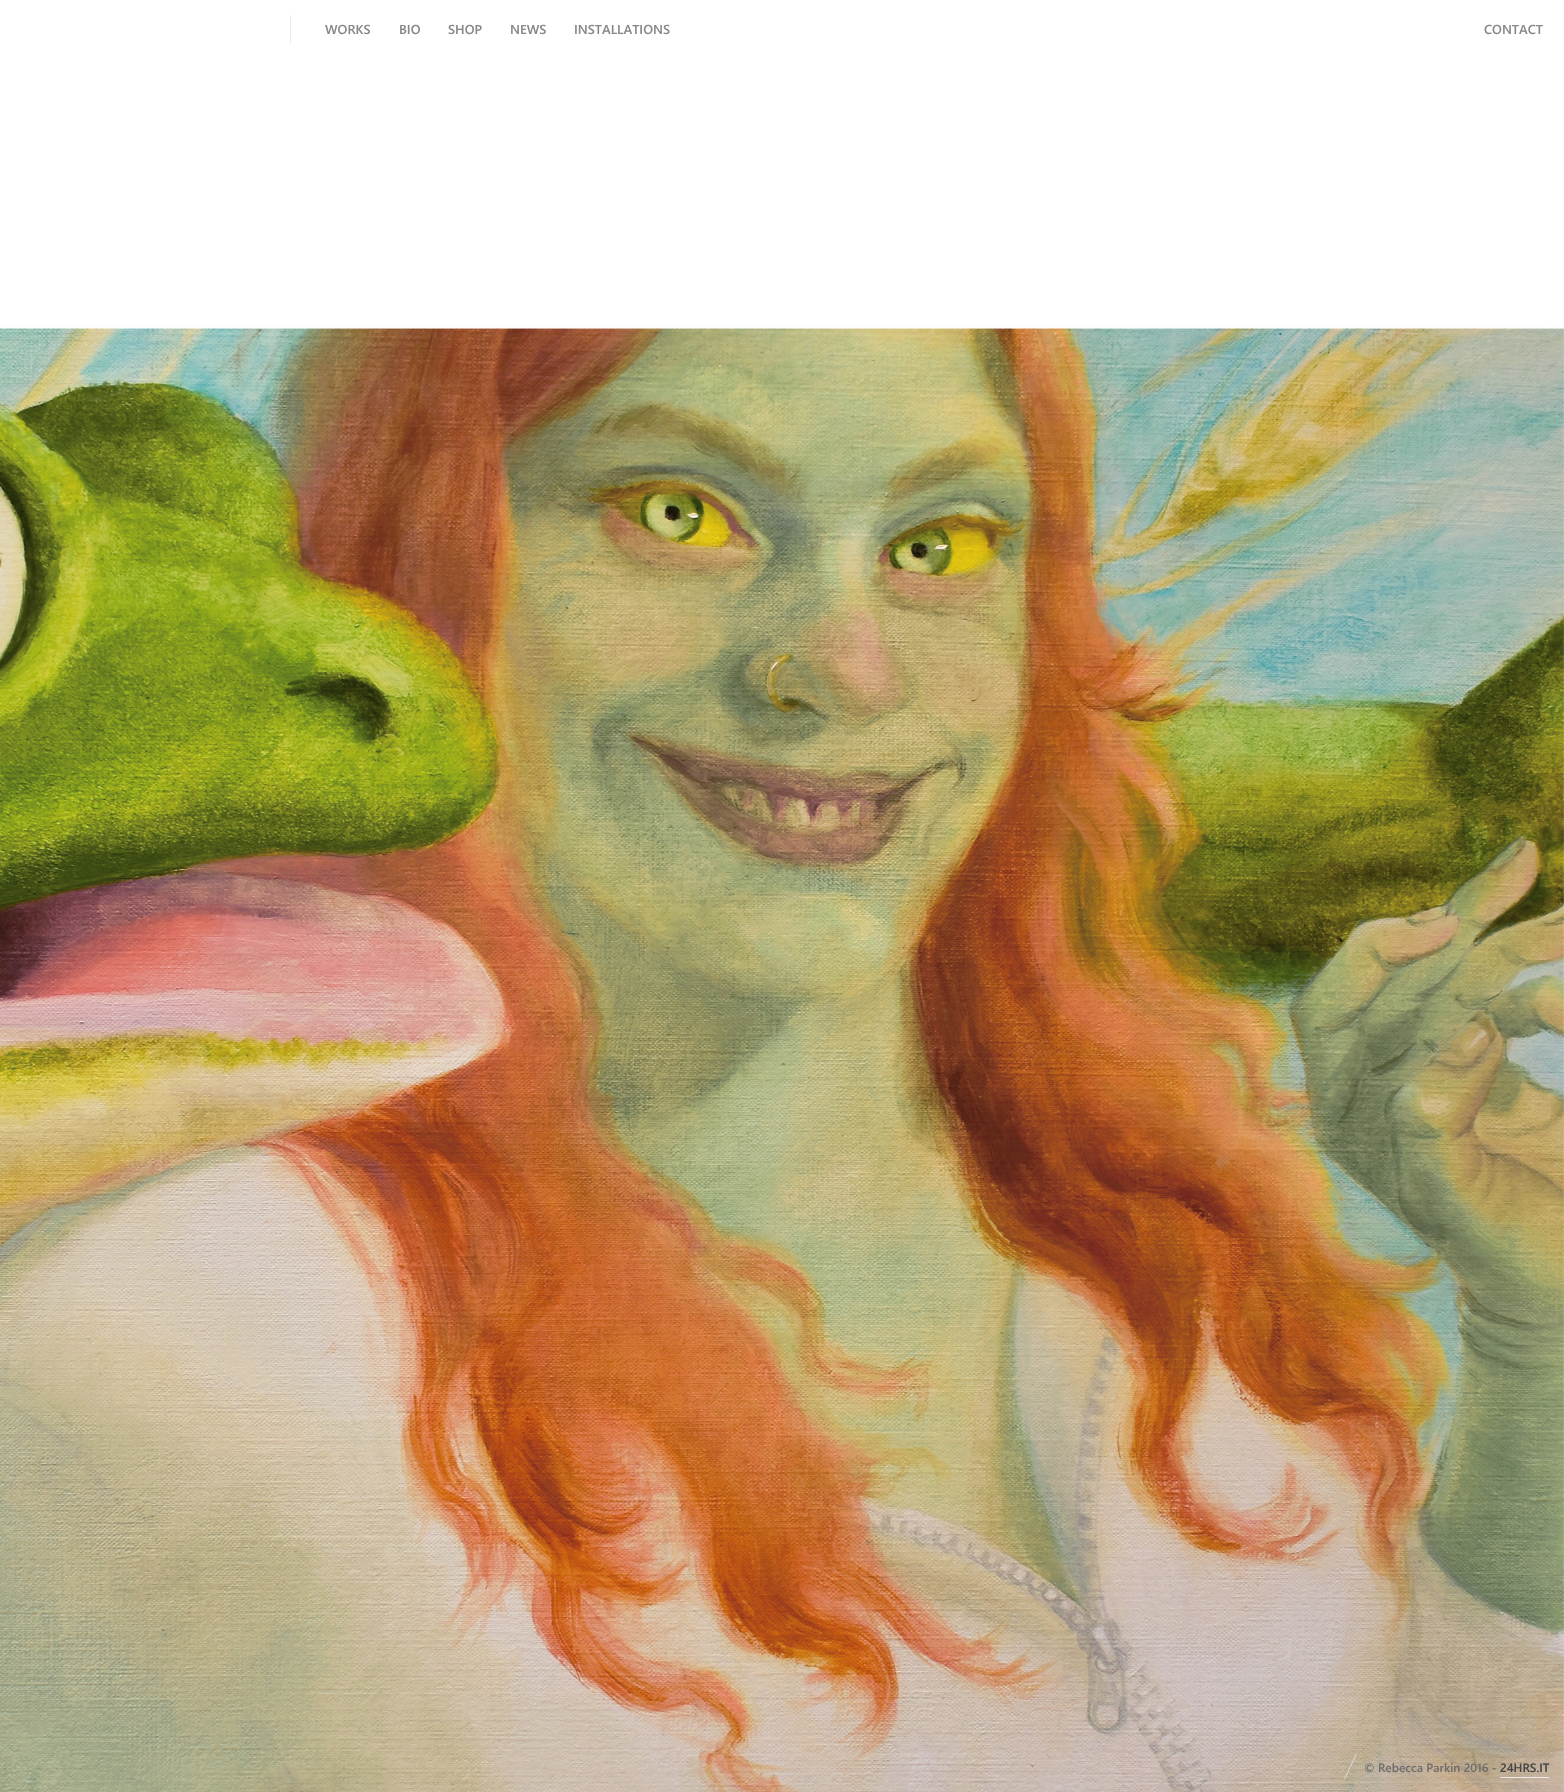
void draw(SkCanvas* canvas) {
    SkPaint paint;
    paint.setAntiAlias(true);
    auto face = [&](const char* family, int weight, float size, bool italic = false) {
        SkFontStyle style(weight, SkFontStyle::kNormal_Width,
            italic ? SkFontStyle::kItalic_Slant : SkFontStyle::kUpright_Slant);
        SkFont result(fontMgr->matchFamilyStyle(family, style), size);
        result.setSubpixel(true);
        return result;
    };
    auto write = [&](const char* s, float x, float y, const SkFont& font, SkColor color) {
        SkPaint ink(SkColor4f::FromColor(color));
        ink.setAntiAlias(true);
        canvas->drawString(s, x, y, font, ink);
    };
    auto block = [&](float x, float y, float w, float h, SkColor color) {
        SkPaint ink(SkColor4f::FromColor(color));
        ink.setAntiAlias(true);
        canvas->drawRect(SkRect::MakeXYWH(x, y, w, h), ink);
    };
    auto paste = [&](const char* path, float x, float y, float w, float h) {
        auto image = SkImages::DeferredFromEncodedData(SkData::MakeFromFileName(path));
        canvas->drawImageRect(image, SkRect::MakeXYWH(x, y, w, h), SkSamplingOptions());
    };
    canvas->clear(SK_ColorWHITE);
    paste("pic1.png", 0, 324, 1564, 1468);
    block(290, 15, 1, 28, SkColorSetRGB(235, 235, 235));
    auto kFont1 = face("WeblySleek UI", 600, 13);
    write("WORKS", 325, 34, kFont1, SkColorSetRGB(136, 136, 136));
    write("BIO", 399, 34, kFont1, SkColorSetRGB(136, 136, 136));
    write("SHOP", 448, 34, kFont1, SkColorSetRGB(136, 136, 136));
    write("NEWS", 510, 34, kFont1, SkColorSetRGB(136, 136, 136));
    write("INSTALLATIONS", 574, 34, kFont1, SkColorSetRGB(136, 136, 136));
    write("CONTACT", 1484, 34, kFont1, SkColorSetRGB(136, 136, 136));
    paste("pic2.png", 1344, 1753, 13, 27);
    auto kFont2 = face("WeblySleek UI", 600, 12);
    write("© Rebecca Parkin 2016 -", 1364, 1772, kFont2, SkColorSetRGB(110, 110, 110));
    block(1500, 1777, 49, 1, SkColorSetRGB(234, 234, 234));
    write("24HRS.IT", 1500, 1772, kFont2, SkColorSetRGB(68, 68, 68));
}
